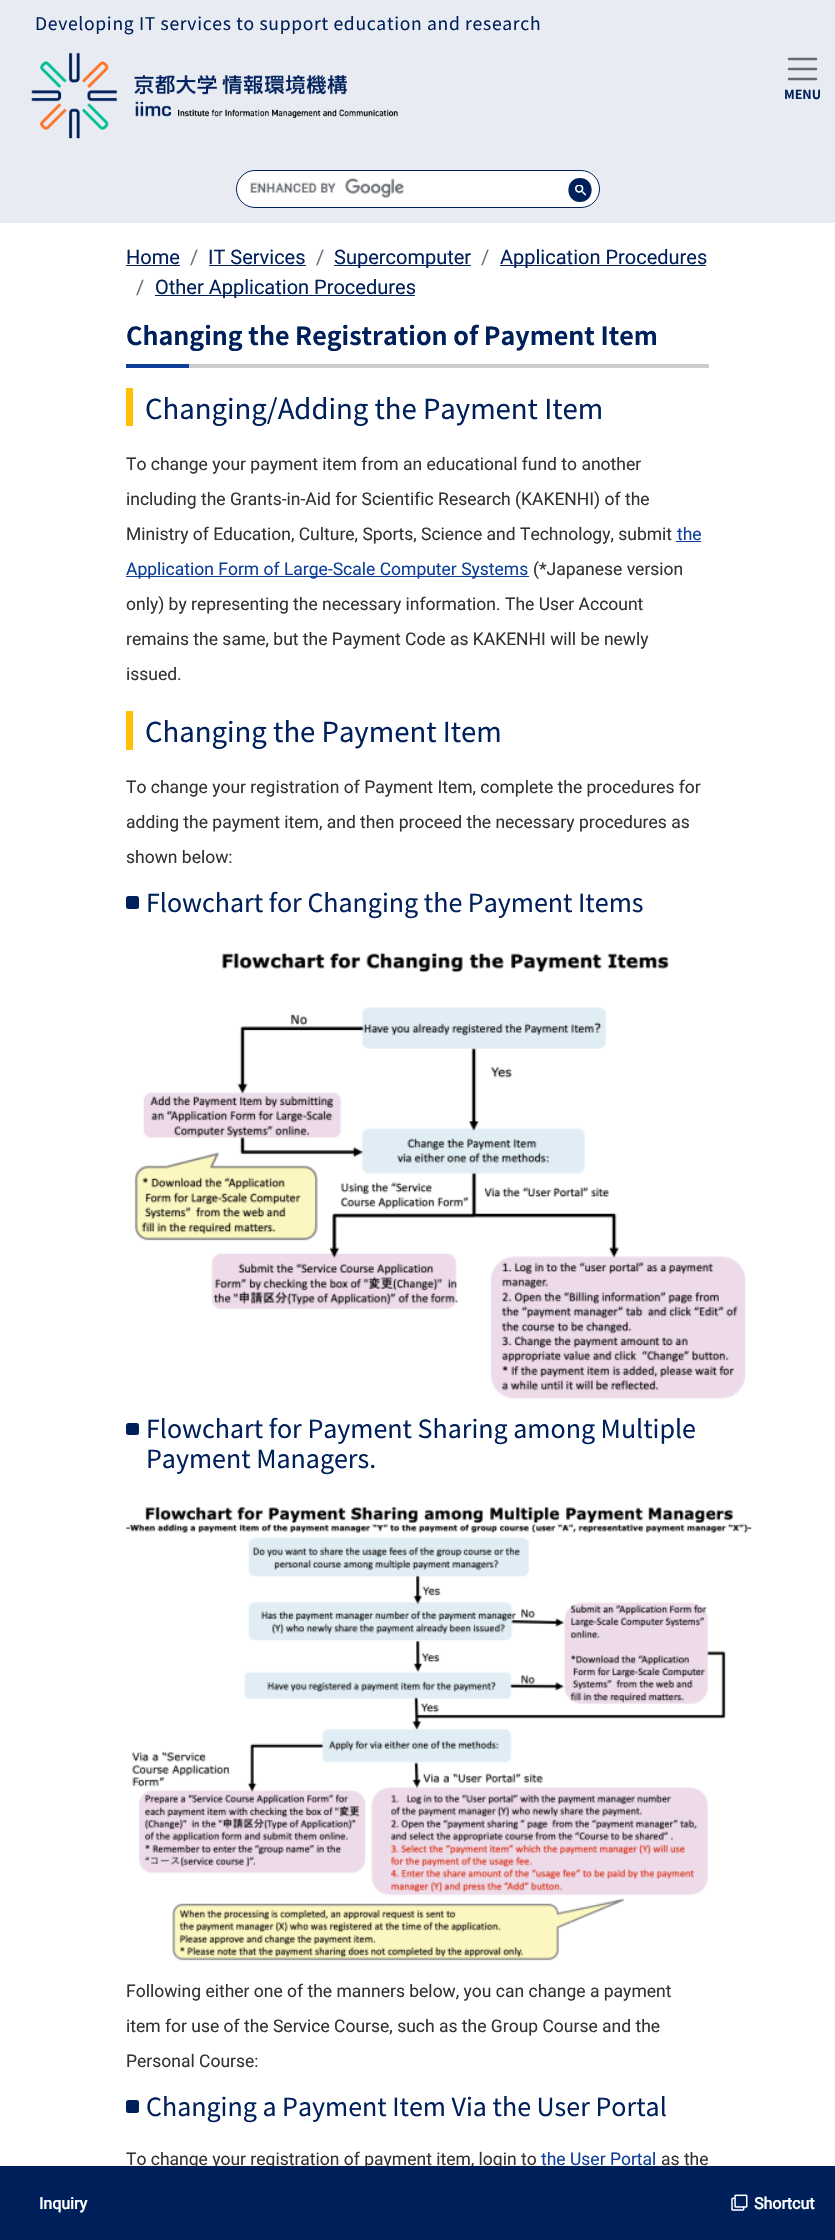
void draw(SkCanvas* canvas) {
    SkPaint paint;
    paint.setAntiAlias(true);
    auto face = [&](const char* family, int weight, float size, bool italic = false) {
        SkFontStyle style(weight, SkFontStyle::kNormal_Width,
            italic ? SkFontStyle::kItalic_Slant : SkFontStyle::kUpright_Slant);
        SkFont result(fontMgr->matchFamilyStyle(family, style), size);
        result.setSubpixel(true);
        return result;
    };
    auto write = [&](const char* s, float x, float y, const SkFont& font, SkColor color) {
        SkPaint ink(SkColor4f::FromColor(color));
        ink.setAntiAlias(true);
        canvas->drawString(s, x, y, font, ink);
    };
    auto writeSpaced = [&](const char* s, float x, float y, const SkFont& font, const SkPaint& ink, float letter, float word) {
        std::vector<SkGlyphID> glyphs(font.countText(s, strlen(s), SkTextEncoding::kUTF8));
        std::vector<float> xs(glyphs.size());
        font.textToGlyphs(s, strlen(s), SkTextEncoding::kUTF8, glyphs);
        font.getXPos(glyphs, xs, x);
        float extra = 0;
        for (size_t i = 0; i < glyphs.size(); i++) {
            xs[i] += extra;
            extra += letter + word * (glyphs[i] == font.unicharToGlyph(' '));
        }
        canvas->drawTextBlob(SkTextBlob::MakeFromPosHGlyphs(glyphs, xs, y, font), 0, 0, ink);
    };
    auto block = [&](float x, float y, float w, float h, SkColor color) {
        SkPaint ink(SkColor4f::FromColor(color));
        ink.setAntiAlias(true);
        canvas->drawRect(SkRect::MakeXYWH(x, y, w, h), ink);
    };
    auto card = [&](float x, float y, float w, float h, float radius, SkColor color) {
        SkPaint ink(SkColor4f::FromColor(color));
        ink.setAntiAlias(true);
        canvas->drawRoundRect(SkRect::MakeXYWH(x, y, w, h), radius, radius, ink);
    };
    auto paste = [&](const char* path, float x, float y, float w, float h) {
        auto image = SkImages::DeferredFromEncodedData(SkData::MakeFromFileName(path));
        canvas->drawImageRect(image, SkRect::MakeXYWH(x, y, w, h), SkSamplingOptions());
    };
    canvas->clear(SK_ColorWHITE);
    block(0, 0, 835, 223, SkColorSetRGB(232, 236, 242));
    auto kFont1 = face("Noto Sans JP", 400, 17.5f);
    paint.setColor(SkColorSetRGB(0, 32, 91));
    writeSpaced("Developing IT services to support education and research", 35, 30, kFont1, paint, 0.7f, 0);
    paste("pic1.png", 31, 52, 367, 87);
    paint.setStyle(SkPaint::kStroke_Style);
    paint.setStrokeWidth(2.5f);
    paint.setStrokeCap(SkPaint::kRound_Cap);
    paint.setColor(SkColorSetRGB(104, 106, 109));
    canvas->drawPath(SkPathBuilder().moveTo(789, 59).lineTo(816, 59).moveTo(789, 69).lineTo(816, 69).moveTo(789, 79).lineTo(816, 79).detach(), paint);
    auto kFont2 = face("Noto Sans JP", 700, 12.5f);
    write("MENU", 784, 99, kFont2, SkColorSetRGB(0, 32, 91));
    paint.setStyle(SkPaint::kFill_Style);
    paint.setColor(SK_ColorWHITE);
    canvas->drawRoundRect(SkRect::MakeXYWH(236.5f, 170.5f, 363, 37), 18.5f, 18.5f, paint);
    paint.setStyle(SkPaint::kStroke_Style);
    paint.setStrokeWidth(1);
    paint.setStrokeCap(SkPaint::kButt_Cap);
    paint.setColor(SkColorSetRGB(0, 32, 91));
    canvas->drawRoundRect(SkRect::MakeXYWH(236.5f, 170.5f, 363, 37), 18.5f, 18.5f, paint);
    paste("pic2.png", 250, 178, 154, 20);
    block(236, 208, 3, 3, SkColorSetRGB(230, 240, 247));
    paint.setStyle(SkPaint::kFill_Style);
    canvas->drawPath(SkPathBuilder().moveTo(580, 178).cubicTo(564.5f, 178, 564.5f, 202, 580, 202).cubicTo(595.5f, 202, 595.5f, 178, 580, 178).close().detach(), paint);
    paste("pic3.png", 575, 185, 11, 11);
    auto kFont3 = face("Roboto", 400, 20);
    write("Home", 126, 264, kFont3, SkColorSetRGB(0, 32, 91));
    block(126, 265, 54, 1, SkColorSetRGB(0, 32, 91));
    write("/", 190, 264, kFont3, SkColorSetRGB(108, 117, 125));
    write("IT Services", 208, 264, kFont3, SkColorSetRGB(0, 32, 91));
    block(209, 265, 97, 1, SkColorSetRGB(0, 32, 91));
    write("/", 316, 264, kFont3, SkColorSetRGB(108, 117, 125));
    block(334, 265, 137, 1, SkColorSetRGB(0, 32, 91));
    write("Supercomputer", 334, 264, kFont3, SkColorSetRGB(0, 32, 91));
    write("/", 481, 264, kFont3, SkColorSetRGB(108, 117, 125));
    block(500, 265, 206, 1, SkColorSetRGB(0, 32, 91));
    write("Application Procedures", 500, 264, kFont3, SkColorSetRGB(0, 32, 91));
    write("/", 136, 294, kFont3, SkColorSetRGB(108, 117, 125));
    block(155, 295, 260, 1, SkColorSetRGB(0, 32, 91));
    write("Other Application Procedures", 155, 294, kFont3, SkColorSetRGB(0, 32, 91));
    auto kFont4 = face("Noto Sans JP", 700, 25);
    write("Changing the Registration of Payment Item", 126, 345, kFont4, SkColorSetRGB(0, 32, 91));
    block(126, 364, 63, 4, SkColorSetRGB(12, 62, 154));
    block(189, 364, 520, 4, SkColorSetRGB(204, 204, 204));
    block(126, 388, 7, 38, SkColorSetRGB(255, 193, 7));
    auto kFont5 = face("Noto Sans JP", 400, 27.5f);
    write("Changing/Adding the Payment Item", 145, 419, kFont5, SkColorSetRGB(0, 32, 91));
    auto kFont6 = face("Roboto", 400, 17.5f);
    write("To change your payment item from an educational fund to another", 126, 470, kFont6, SkColorSetRGB(51, 51, 51));
    write("including the Grants-in-Aid for Scientific Research (KAKENHI) of the", 126, 505, kFont6, SkColorSetRGB(51, 51, 51));
    write("Ministry of Education, Culture, Sports, Science and Technology, submit", 126, 540, kFont6, SkColorSetRGB(51, 51, 51));
    write("the", 677, 540, kFont6, SkColorSetRGB(12, 62, 154));
    block(676, 541, 25, 1, SkColorSetRGB(12, 62, 154));
    block(126, 576, 403, 1, SkColorSetRGB(12, 62, 154));
    write("Application Form of Large-Scale Computer Systems", 126, 575, kFont6, SkColorSetRGB(12, 62, 154));
    write("(*Japanese version", 533, 575, kFont6, SkColorSetRGB(51, 51, 51));
    write("only) by representing the necessary information. The User Account", 126, 610, kFont6, SkColorSetRGB(51, 51, 51));
    write("remains the same, but the Payment Code as KAKENHI will be newly", 126, 645, kFont6, SkColorSetRGB(51, 51, 51));
    write("issued.", 126, 680, kFont6, SkColorSetRGB(51, 51, 51));
    block(126, 711, 7, 39, SkColorSetRGB(255, 193, 7));
    write("Changing the Payment Item", 145, 742, kFont5, SkColorSetRGB(0, 32, 91));
    write("To change your registration of Payment Item, complete the procedures for", 126, 793, kFont6, SkColorSetRGB(51, 51, 51));
    write("adding the payment item, and then proceed the necessary procedures as", 126, 828, kFont6, SkColorSetRGB(51, 51, 51));
    write("shown below:", 126, 863, kFont6, SkColorSetRGB(51, 51, 51));
    card(126, 896, 13, 13, 2.5f, SkColorSetRGB(0, 32, 91));
    auto kFont7 = face("Noto Sans JP", 400, 25);
    write("Flowchart for Changing the Payment Items", 146, 912, kFont7, SkColorSetRGB(0, 32, 91));
    paste("pic4.png", 134, 952, 612, 447);
    card(126, 1423, 13, 12, 2.5f, SkColorSetRGB(0, 32, 91));
    write("Flowchart for Payment Sharing among Multiple", 146, 1438, kFont7, SkColorSetRGB(0, 32, 91));
    write("Payment Managers.", 146, 1468, kFont7, SkColorSetRGB(0, 32, 91));
    paste("pic5.png", 126, 1506, 626, 455);
    write("Following either one of the manners below, you can change a payment", 126, 1997, kFont6, SkColorSetRGB(51, 51, 51));
    write("item for use of the Service Course, such as the Group Course and the", 126, 2032, kFont6, SkColorSetRGB(51, 51, 51));
    write("Personal Course:", 126, 2067, kFont6, SkColorSetRGB(51, 51, 51));
    card(126, 2100, 13, 13, 2.5f, SkColorSetRGB(0, 32, 91));
    write("Changing a Payment Item Via the User Portal", 146, 2116, kFont7, SkColorSetRGB(0, 32, 91));
    write("To change your registration of payment item, login to", 126, 2165, kFont6, SkColorSetRGB(51, 51, 51));
    write("the User Portal", 541, 2165, kFont6, SkColorSetRGB(12, 62, 154));
    write("as the", 661, 2165, kFont6, SkColorSetRGB(51, 51, 51));
    block(0, 2166, 835, 74, SkColorSetRGB(0, 32, 91));
    auto kFont8 = face("Roboto", 700, 16);
    write("Inquiry", 39, 2209, kFont8, SK_ColorWHITE);
    paste("pic6.png", 731, 2194, 17, 17);
    write("Shortcut", 754, 2209, kFont8, SK_ColorWHITE);
}
